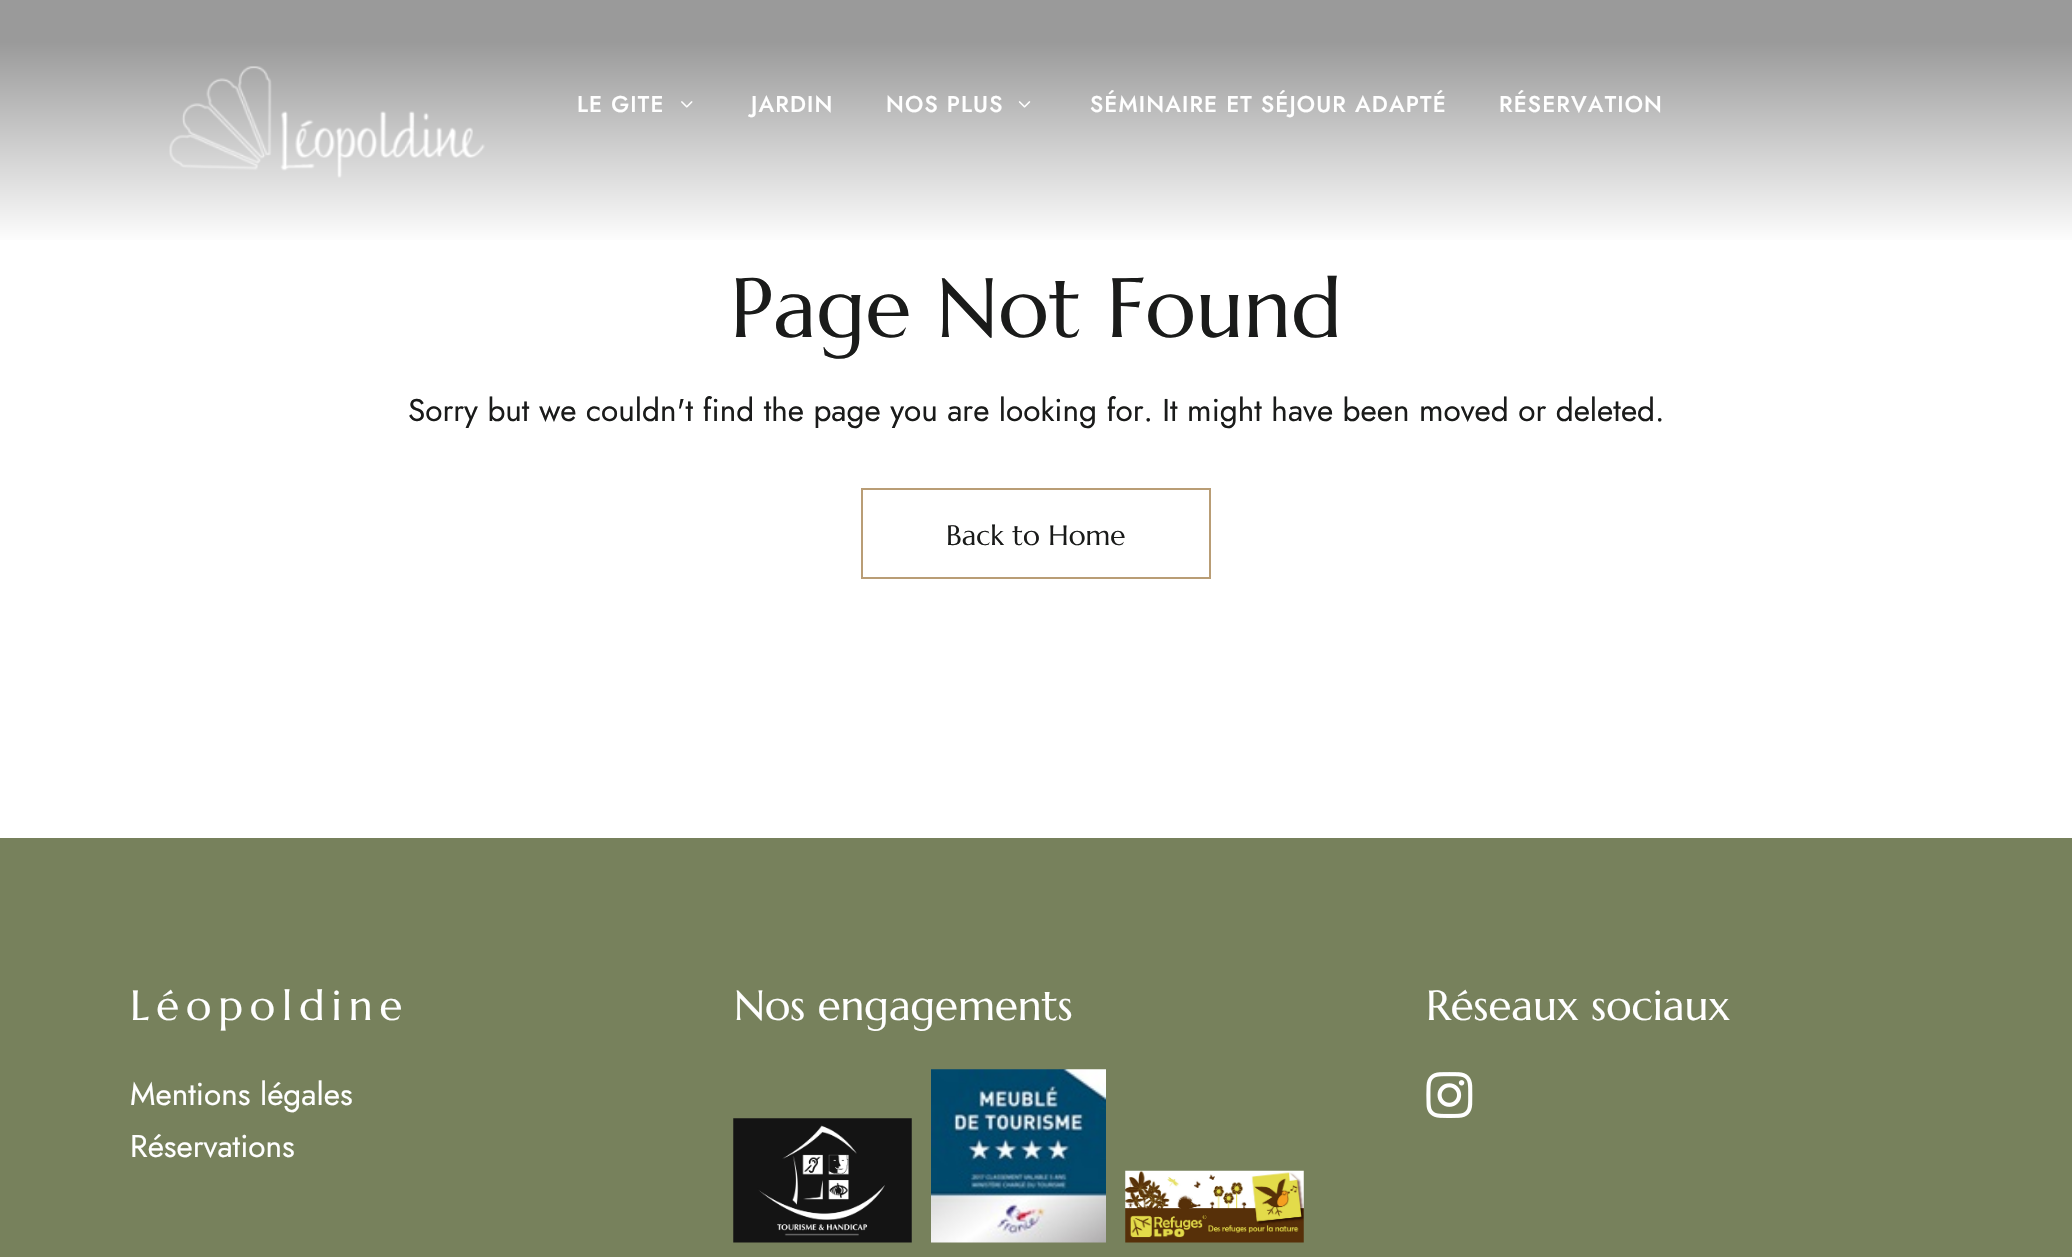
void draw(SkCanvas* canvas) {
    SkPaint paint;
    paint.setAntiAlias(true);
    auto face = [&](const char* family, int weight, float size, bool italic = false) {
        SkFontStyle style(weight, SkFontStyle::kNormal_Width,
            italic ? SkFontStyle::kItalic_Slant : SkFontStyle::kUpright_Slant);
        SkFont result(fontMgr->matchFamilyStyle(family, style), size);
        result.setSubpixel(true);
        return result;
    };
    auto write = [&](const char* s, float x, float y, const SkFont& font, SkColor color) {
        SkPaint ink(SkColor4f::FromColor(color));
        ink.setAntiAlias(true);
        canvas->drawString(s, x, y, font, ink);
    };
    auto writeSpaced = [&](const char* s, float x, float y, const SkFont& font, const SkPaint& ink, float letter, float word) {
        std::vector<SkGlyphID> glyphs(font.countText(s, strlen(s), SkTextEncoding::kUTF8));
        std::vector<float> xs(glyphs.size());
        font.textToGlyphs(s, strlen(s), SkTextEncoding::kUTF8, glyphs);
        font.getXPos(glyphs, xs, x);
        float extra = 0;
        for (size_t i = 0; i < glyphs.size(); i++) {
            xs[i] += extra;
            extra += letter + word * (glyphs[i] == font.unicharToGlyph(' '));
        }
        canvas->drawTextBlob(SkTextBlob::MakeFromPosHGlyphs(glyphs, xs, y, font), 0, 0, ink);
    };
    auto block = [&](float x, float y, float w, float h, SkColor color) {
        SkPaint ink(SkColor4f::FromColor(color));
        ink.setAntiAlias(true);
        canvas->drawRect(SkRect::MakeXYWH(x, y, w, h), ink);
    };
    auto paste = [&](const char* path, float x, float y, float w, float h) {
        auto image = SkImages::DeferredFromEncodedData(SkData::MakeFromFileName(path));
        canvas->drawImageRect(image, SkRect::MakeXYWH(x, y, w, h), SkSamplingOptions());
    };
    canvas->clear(SK_ColorWHITE);
    {
        const SkColor colors[] = {SkColorSetRGB(154, 154, 154), SK_ColorWHITE};
        const float stops[] = {0.17f, 1};
        const SkPoint ends[] = {{1036, 0}, {1036, 245}};
        paint.setShader(SkGradientShader::MakeLinear(ends, colors, stops, 2, SkTileMode::kClamp));
        paint.setAlpha(255);
    }
    canvas->drawRect(SkRect::MakeXYWH(0, 0, 2072, 240), paint);
    paste("pic1.png", 169, 66, 316, 112);
    auto kFont1 = face("Jost", 500, 22.75f);
    paint.setShader(nullptr);
    paint.setColor(SK_ColorWHITE);
    writeSpaced("LE GITE", 577, 112, kFont1, paint, 1.15f, 0);
    paste("pic2.png", 681, 101, 12, 7);
    writeSpaced("JARDIN", 751, 112, kFont1, paint, 1.15f, 0);
    writeSpaced("NOS PLUS", 886, 112, kFont1, paint, 1.15f, 0);
    paste("pic3.png", 1018, 101, 13, 7);
    writeSpaced("SÉMINAIRE ET SÉJOUR ADAPTÉ", 1090, 112, kFont1, paint, 1.15f, 0);
    writeSpaced("RÉSERVATION", 1499, 112, kFont1, paint, 1.15f, 0);
    auto kFont2 = face("Marcellus", 400, 84);
    write("Page Not Found", 730, 337, kFont2, SkColorSetRGB(26, 27, 26));
    auto kFont3 = face("Jost", 400, 31.5f);
    write("Sorry but we couldn't find the page you are looking for. It might have been moved or deleted.", 408, 421, kFont3, SkColorSetRGB(26, 27, 26));
    paint.setStyle(SkPaint::kStroke_Style);
    paint.setStrokeWidth(2);
    paint.setColor(SkColorSetRGB(185, 157, 117));
    canvas->drawRect(SkRect::MakeXYWH(862, 489, 348, 89), paint);
    auto kFont4 = face("Marcellus", 400, 28);
    write("Back to Home", 946, 545, kFont4, SkColorSetRGB(26, 27, 26));
    block(0, 838, 2072, 419, SkColorSetRGB(119, 129, 92));
    auto kFont5 = face("Marcellus", 400, 42);
    paint.setStyle(SkPaint::kFill_Style);
    paint.setColor(SK_ColorWHITE);
    writeSpaced("Léopoldine", 130, 1020, kFont5, paint, 7, 0);
    write("Mentions légales", 130, 1105, kFont3, SK_ColorWHITE);
    write("Réservations", 130, 1157, kFont3, SK_ColorWHITE);
    write("Nos engagements", 734, 1020, kFont5, SK_ColorWHITE);
    paste("pic4.png", 733, 1118, 179, 125);
    paste("pic5.png", 931, 1069, 175, 174);
    paste("pic6.png", 1125, 1170, 179, 73);
    write("Réseaux sociaux", 1426, 1020, kFont5, SK_ColorWHITE);
    paste("pic7.png", 1426, 1072, 47, 46);
}
